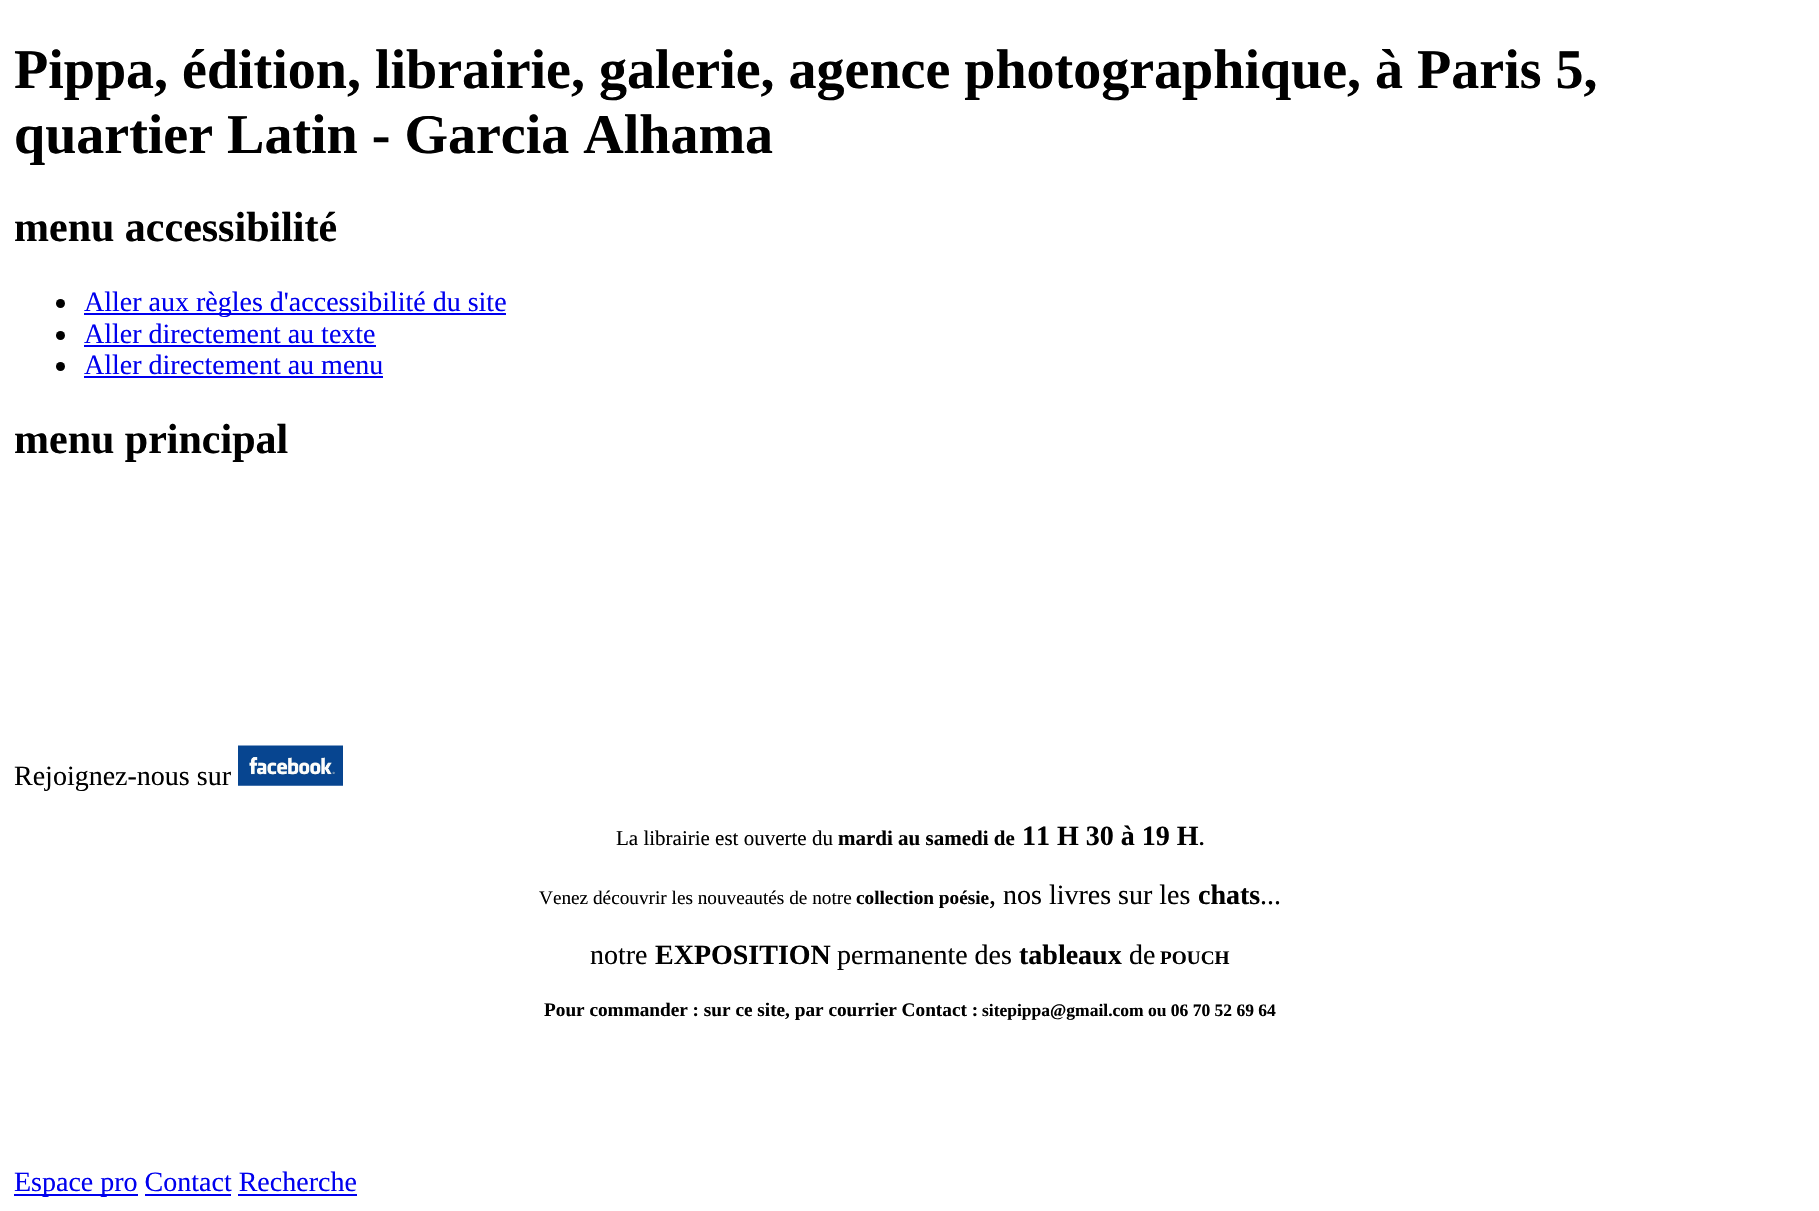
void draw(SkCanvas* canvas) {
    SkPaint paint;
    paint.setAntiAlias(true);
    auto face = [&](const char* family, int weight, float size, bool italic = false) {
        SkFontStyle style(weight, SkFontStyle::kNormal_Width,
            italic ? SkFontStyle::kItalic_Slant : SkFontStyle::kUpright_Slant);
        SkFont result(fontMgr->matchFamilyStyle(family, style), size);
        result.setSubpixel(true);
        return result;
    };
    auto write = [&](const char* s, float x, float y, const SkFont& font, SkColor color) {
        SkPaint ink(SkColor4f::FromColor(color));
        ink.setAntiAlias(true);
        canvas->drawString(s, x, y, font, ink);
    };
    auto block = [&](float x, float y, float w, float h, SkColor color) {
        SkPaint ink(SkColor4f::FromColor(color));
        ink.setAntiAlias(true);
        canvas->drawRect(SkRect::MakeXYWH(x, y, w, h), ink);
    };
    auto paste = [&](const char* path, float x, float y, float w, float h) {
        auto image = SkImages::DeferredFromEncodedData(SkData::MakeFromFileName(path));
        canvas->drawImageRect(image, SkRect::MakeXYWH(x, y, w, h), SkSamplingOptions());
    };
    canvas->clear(SK_ColorWHITE);
    auto kFont1 = face("Liberation Serif", 700, 56);
    write("Pippa, édition, librairie, galerie, agence photographique, à Paris 5,", 14, 88, kFont1, SK_ColorBLACK);
    write("quartier Latin - Garcia Alhama", 14, 153, kFont1, SK_ColorBLACK);
    auto kFont2 = face("Liberation Serif", 700, 42);
    write("menu accessibilité", 14, 241, kFont2, SK_ColorBLACK);
    paint.setColor(SK_ColorBLACK);
    canvas->drawCircle(60.5f, 303.5f, 4.5f, paint);
    block(84, 313, 422, 2, SkColorSetRGB(0, 0, 238));
    auto kFont3 = face("Liberation Serif", 400, 28);
    write("Aller aux règles d'accessibilité du site", 84, 311, kFont3, SkColorSetRGB(0, 0, 238));
    canvas->drawCircle(60.5f, 335.5f, 4.5f, paint);
    write("Aller directement au texte", 84, 343, kFont3, SkColorSetRGB(0, 0, 238));
    block(84, 345, 292, 2, SkColorSetRGB(0, 0, 238));
    canvas->drawCircle(60.5f, 366.5f, 4.5f, paint);
    write("Aller directement au menu", 84, 374, kFont3, SkColorSetRGB(0, 0, 238));
    block(84, 376, 299, 2, SkColorSetRGB(0, 0, 238));
    write("menu principal", 14, 453, kFont2, SK_ColorBLACK);
    write("Rejoignez-nous sur", 14, 785, kFont3, SK_ColorBLACK);
    paste("pic1.png", 238, 745, 105, 41);
    auto kFont4 = face("Liberation Serif", 400, 21);
    write("La librairie est ouverte du", 616, 845, kFont4, SK_ColorBLACK);
    auto kFont5 = face("Liberation Serif", 700, 21);
    write("mardi au samedi de", 838, 845, kFont5, SK_ColorBLACK);
    auto kFont6 = face("Liberation Serif", 700, 28);
    write("11 H 30 à 19 H", 1022, 845, kFont6, SK_ColorBLACK);
    write(".", 1199, 845, kFont5, SK_ColorBLACK);
    auto kFont7 = face("Liberation Serif", 400, 19.25f);
    write("Venez découvrir les nouveautés de notre", 539, 904, kFont7, SK_ColorBLACK);
    auto kFont8 = face("Liberation Serif", 700, 19.25f);
    write("collection poésie", 856, 904, kFont8, SK_ColorBLACK);
    write(", nos livres sur les", 989, 904, kFont3, SK_ColorBLACK);
    write("chats", 1198, 904, kFont6, SK_ColorBLACK);
    write("...", 1260, 904, kFont3, SK_ColorBLACK);
    write("notre", 590, 964, kFont3, SK_ColorBLACK);
    write("EXPOSITION", 655, 964, kFont6, SK_ColorBLACK);
    write("permanente des", 837, 964, kFont3, SK_ColorBLACK);
    write("tableaux", 1019, 964, kFont6, SK_ColorBLACK);
    write("de", 1129, 964, kFont3, SK_ColorBLACK);
    write("POUCH", 1160, 964, kFont8, SK_ColorBLACK);
    write("Pour commander : sur ce site, par courrier Contact :", 544, 1016, kFont8, SK_ColorBLACK);
    auto kFont9 = face("Liberation Serif", 700, 17.5f);
    write("sitepippa@gmail.com ou 06 70 52 69 64", 982, 1016, kFont9, SK_ColorBLACK);
    block(14, 1194, 124, 2, SkColorSetRGB(0, 0, 238));
    write("Espace pro Contact Recherche", 14, 1191, kFont3, SkColorSetRGB(0, 0, 238));
    block(145, 1194, 86, 2, SkColorSetRGB(0, 0, 238));
    block(238, 1194, 119, 2, SkColorSetRGB(0, 0, 238));
}
